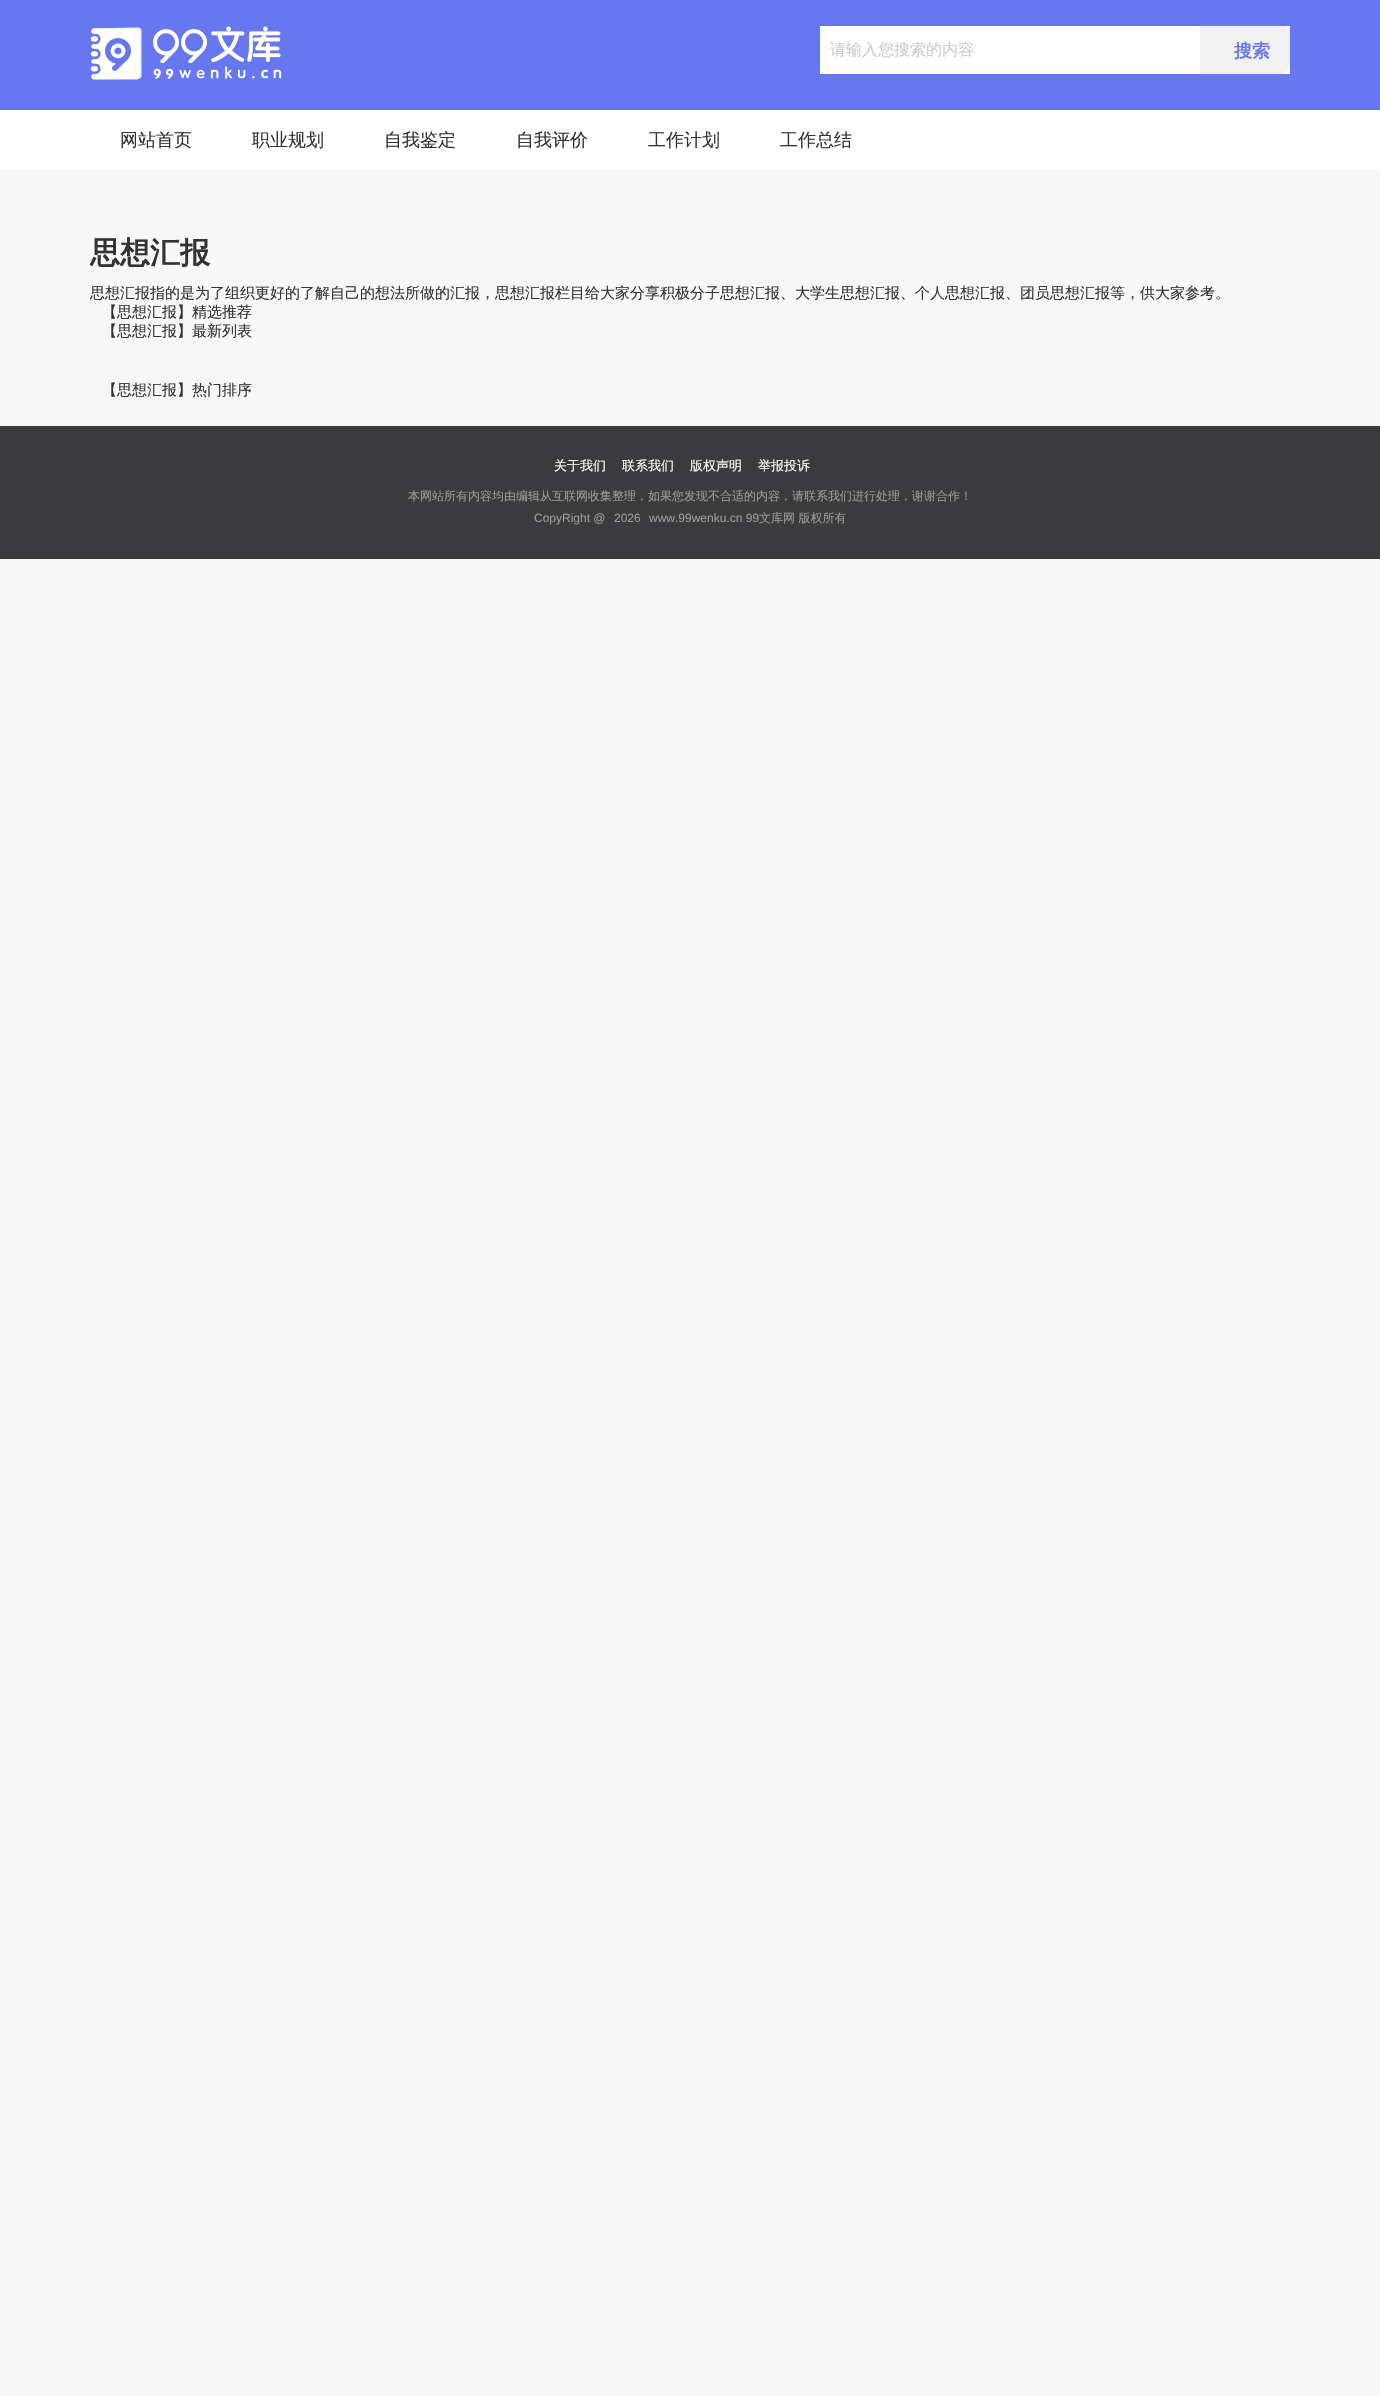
void draw(SkCanvas* canvas) {
    SkPaint paint;
    paint.setAntiAlias(true);
    auto face = [&](const char* family, int weight, float size, bool italic = false) {
        SkFontStyle style(weight, SkFontStyle::kNormal_Width,
            italic ? SkFontStyle::kItalic_Slant : SkFontStyle::kUpright_Slant);
        SkFont result(fontMgr->matchFamilyStyle(family, style), size);
        result.setSubpixel(true);
        return result;
    };
    auto write = [&](const char* s, float x, float y, const SkFont& font, SkColor color) {
        SkPaint ink(SkColor4f::FromColor(color));
        ink.setAntiAlias(true);
        canvas->drawString(s, x, y, font, ink);
    };
    auto block = [&](float x, float y, float w, float h, SkColor color) {
        SkPaint ink(SkColor4f::FromColor(color));
        ink.setAntiAlias(true);
        canvas->drawRect(SkRect::MakeXYWH(x, y, w, h), ink);
    };
    auto card = [&](float x, float y, float w, float h, float radius, SkColor color) {
        SkPaint ink(SkColor4f::FromColor(color));
        ink.setAntiAlias(true);
        canvas->drawRoundRect(SkRect::MakeXYWH(x, y, w, h), radius, radius, ink);
    };
    auto paste = [&](const char* path, float x, float y, float w, float h) {
        auto image = SkImages::DeferredFromEncodedData(SkData::MakeFromFileName(path));
        canvas->drawImageRect(image, SkRect::MakeXYWH(x, y, w, h), SkSamplingOptions());
    };
    canvas->clear(SkColorSetRGB(247, 247, 247));
    block(0, 0, 1380, 110, SkColorSetRGB(103, 119, 239));
    paste("pic1.png", 90, 26, 192, 54);
    block(820, 26, 470, 48, SK_ColorWHITE);
    card(820, 26, 470, 48, 10, SkColorSetRGB(241, 241, 241));
    paint.setColor(SK_ColorWHITE);
    canvas->drawPath(SkPathBuilder().moveTo(830, 26).lineTo(1200, 26).lineTo(1200, 74).lineTo(830, 74).cubicTo(824.5f, 74, 820, 69.5f, 820, 64).lineTo(820, 36).cubicTo(820, 30.5f, 824.5f, 26, 830, 26).close().detach(), paint);
    auto kFont1 = face("WenQuanYi Zen Hei", 500, 16);
    write("请输入您搜索的内容", 830, 55, kFont1, SkColorSetRGB(204, 204, 204));
    auto kFont2 = face("WenQuanYi Zen Hei", 700, 18);
    write("搜索", 1234, 57, kFont2, SkColorSetRGB(103, 119, 239));
    block(0, 110, 1380, 60, SK_ColorWHITE);
    auto kFont3 = face("WenQuanYi Zen Hei", 500, 18);
    write("网站首页", 120, 146, kFont3, SkColorSetRGB(51, 51, 51));
    write("职业规划", 252, 146, kFont3, SkColorSetRGB(51, 51, 51));
    write("自我鉴定", 384, 146, kFont3, SkColorSetRGB(51, 51, 51));
    write("自我评价", 516, 146, kFont3, SkColorSetRGB(51, 51, 51));
    write("工作计划", 648, 146, kFont3, SkColorSetRGB(51, 51, 51));
    write("工作总结", 780, 146, kFont3, SkColorSetRGB(51, 51, 51));
    auto kFont4 = face("WenQuanYi Zen Hei", 700, 30);
    write("思想汇报", 90, 263, kFont4, SkColorSetRGB(51, 51, 51));
    auto kFont5 = face("WenQuanYi Zen Hei", 500, 15);
    write("思想汇报指的是为了组织更好的了解自己的想法所做的汇报，思想汇报栏目给大家分享积极分子思想汇报、大学生思想汇报、个人思想汇报、团员思想汇报等，供大家参考。", 90, 298, kFont5, SkColorSetRGB(51, 51, 51));
    write("【思想汇报】精选推荐", 102, 317, kFont5, SkColorSetRGB(51, 51, 51));
    write("【思想汇报】最新列表", 102, 336, kFont5, SkColorSetRGB(51, 51, 51));
    write("【思想汇报】热门排序", 102, 395, kFont5, SkColorSetRGB(51, 51, 51));
    block(0, 426, 1380, 133, SkColorSetRGB(59, 58, 60));
    auto kFont6 = face("WenQuanYi Zen Hei", 500, 13);
    write("关于我们", 554, 470, kFont6, SK_ColorWHITE);
    write("联系我们", 622, 470, kFont6, SK_ColorWHITE);
    write("版权声明", 690, 470, kFont6, SK_ColorWHITE);
    write("举报投诉", 758, 470, kFont6, SK_ColorWHITE);
    auto kFont7 = face("WenQuanYi Zen Hei", 500, 12);
    write("本网站所有内容均由编辑从互联网收集整理，如果您发现不合适的内容，请联系我们进行处理，谢谢合作！", 408, 500, kFont7, SkColorSetRGB(157, 157, 158));
    auto kFont8 = face("Liberation Sans", 400, 12);
    write("CopyRight @", 534, 522, kFont8, SkColorSetRGB(157, 157, 158));
    write("2026", 614, 522, kFont8, SkColorSetRGB(157, 157, 158));
    write("www.99wenku.cn 99", 649, 522, kFont8, SkColorSetRGB(157, 157, 158));
    write("文库网 版权所有", 759, 522, kFont7, SkColorSetRGB(157, 157, 158));
}
